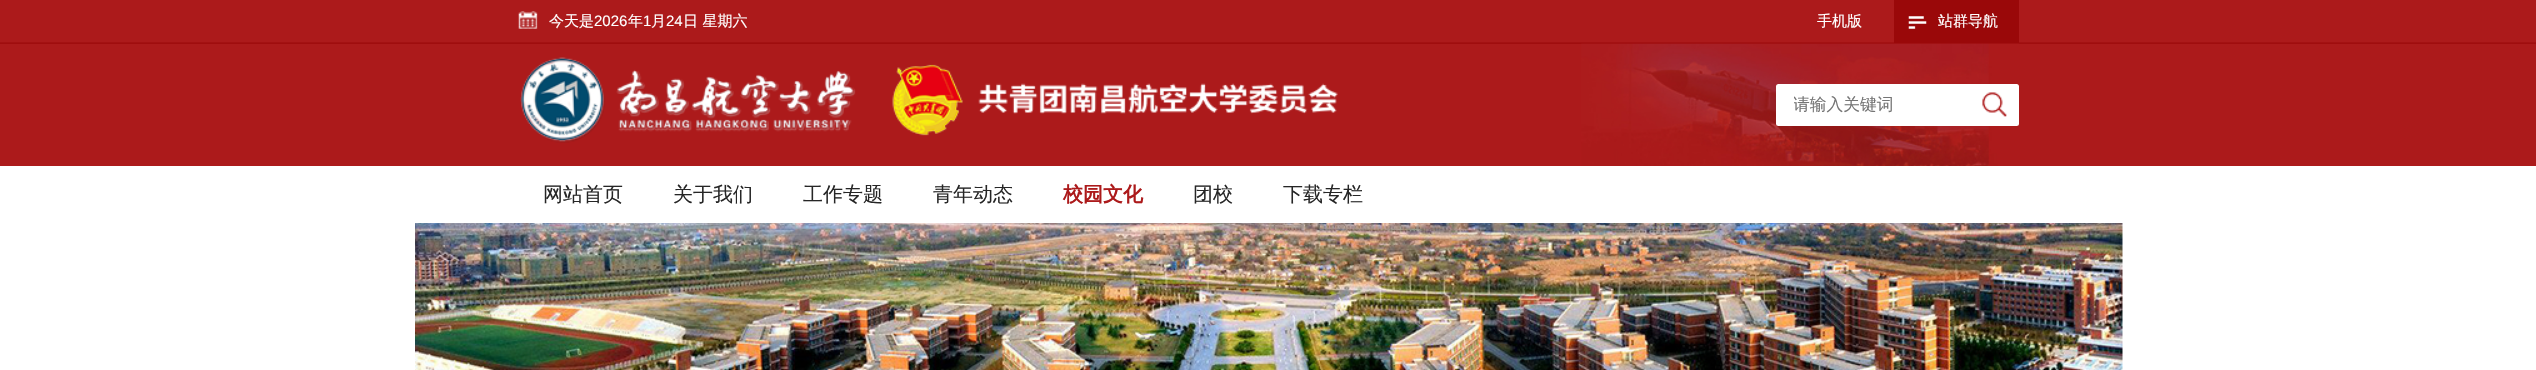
void draw(SkCanvas* canvas) {
    SkPaint paint;
    paint.setAntiAlias(true);
    auto face = [&](const char* family, int weight, float size, bool italic = false) {
        SkFontStyle style(weight, SkFontStyle::kNormal_Width,
            italic ? SkFontStyle::kItalic_Slant : SkFontStyle::kUpright_Slant);
        SkFont result(fontMgr->matchFamilyStyle(family, style), size);
        result.setSubpixel(true);
        return result;
    };
    auto write = [&](const char* s, float x, float y, const SkFont& font, SkColor color) {
        SkPaint ink(SkColor4f::FromColor(color));
        ink.setAntiAlias(true);
        canvas->drawString(s, x, y, font, ink);
    };
    auto block = [&](float x, float y, float w, float h, SkColor color) {
        SkPaint ink(SkColor4f::FromColor(color));
        ink.setAntiAlias(true);
        canvas->drawRect(SkRect::MakeXYWH(x, y, w, h), ink);
    };
    auto card = [&](float x, float y, float w, float h, float radius, SkColor color) {
        SkPaint ink(SkColor4f::FromColor(color));
        ink.setAntiAlias(true);
        canvas->drawRoundRect(SkRect::MakeXYWH(x, y, w, h), radius, radius, ink);
    };
    auto paste = [&](const char* path, float x, float y, float w, float h) {
        auto image = SkImages::DeferredFromEncodedData(SkData::MakeFromFileName(path));
        canvas->drawImageRect(image, SkRect::MakeXYWH(x, y, w, h), SkSamplingOptions());
    };
    canvas->clear(SK_ColorWHITE);
    paste("pic1.png", 0, 0, 2536, 166);
    paste("pic2.png", 518, 11, 20, 18);
    auto kFont1 = face("WenQuanYi Zen Hei", 500, 15);
    write("今天是", 549, 26, kFont1, SK_ColorWHITE);
    auto kFont2 = face("Liberation Sans", 400, 15);
    write("2026", 594, 26, kFont2, SK_ColorWHITE);
    write("年", 628, 26, kFont1, SK_ColorWHITE);
    write("1", 643, 26, kFont2, SK_ColorWHITE);
    write("月", 651, 26, kFont1, SK_ColorWHITE);
    write("24", 666, 26, kFont2, SK_ColorWHITE);
    write("日 星期六", 683, 26, kFont1, SK_ColorWHITE);
    write("手机版", 1817, 26, kFont1, SK_ColorWHITE);
    block(1894, 0, 125, 43, SkColorSetRGB(154, 8, 9));
    paste("pic3.png", 1908, 16, 19, 13);
    write("站群导航", 1938, 26, kFont1, SK_ColorWHITE);
    paste("pic4.png", 1581, 43, 438, 123);
    paste("pic5.png", 520, 57, 818, 86);
    card(1776, 84, 243, 42, 2.5f, SK_ColorWHITE);
    canvas->save();
    canvas->clipRect(SkRect::MakeXYWH(1794, 94, 177, 22));
    auto kFont3 = face("WenQuanYi Zen Hei", 500, 16.75f);
    write("请输入关键词", 1793, 110, kFont3, SkColorSetRGB(117, 117, 117));
    canvas->restore();
    paste("pic6.png", 1982, 92, 25, 25);
    auto kFont4 = face("WenQuanYi Zen Hei", 500, 20);
    write("网站首页", 543, 201, kFont4, SkColorSetRGB(38, 38, 38));
    write("关于我们", 673, 201, kFont4, SkColorSetRGB(38, 38, 38));
    write("工作专题", 803, 201, kFont4, SkColorSetRGB(38, 38, 38));
    write("青年动态", 933, 201, kFont4, SkColorSetRGB(38, 38, 38));
    auto kFont5 = face("WenQuanYi Zen Hei", 700, 20);
    write("校园文化", 1063, 201, kFont5, SkColorSetRGB(172, 26, 27));
    write("团校", 1193, 201, kFont4, SkColorSetRGB(38, 38, 38));
    write("下载专栏", 1283, 201, kFont4, SkColorSetRGB(38, 38, 38));
    paste("pic7.png", 415, 223, 1708, 147);
}
